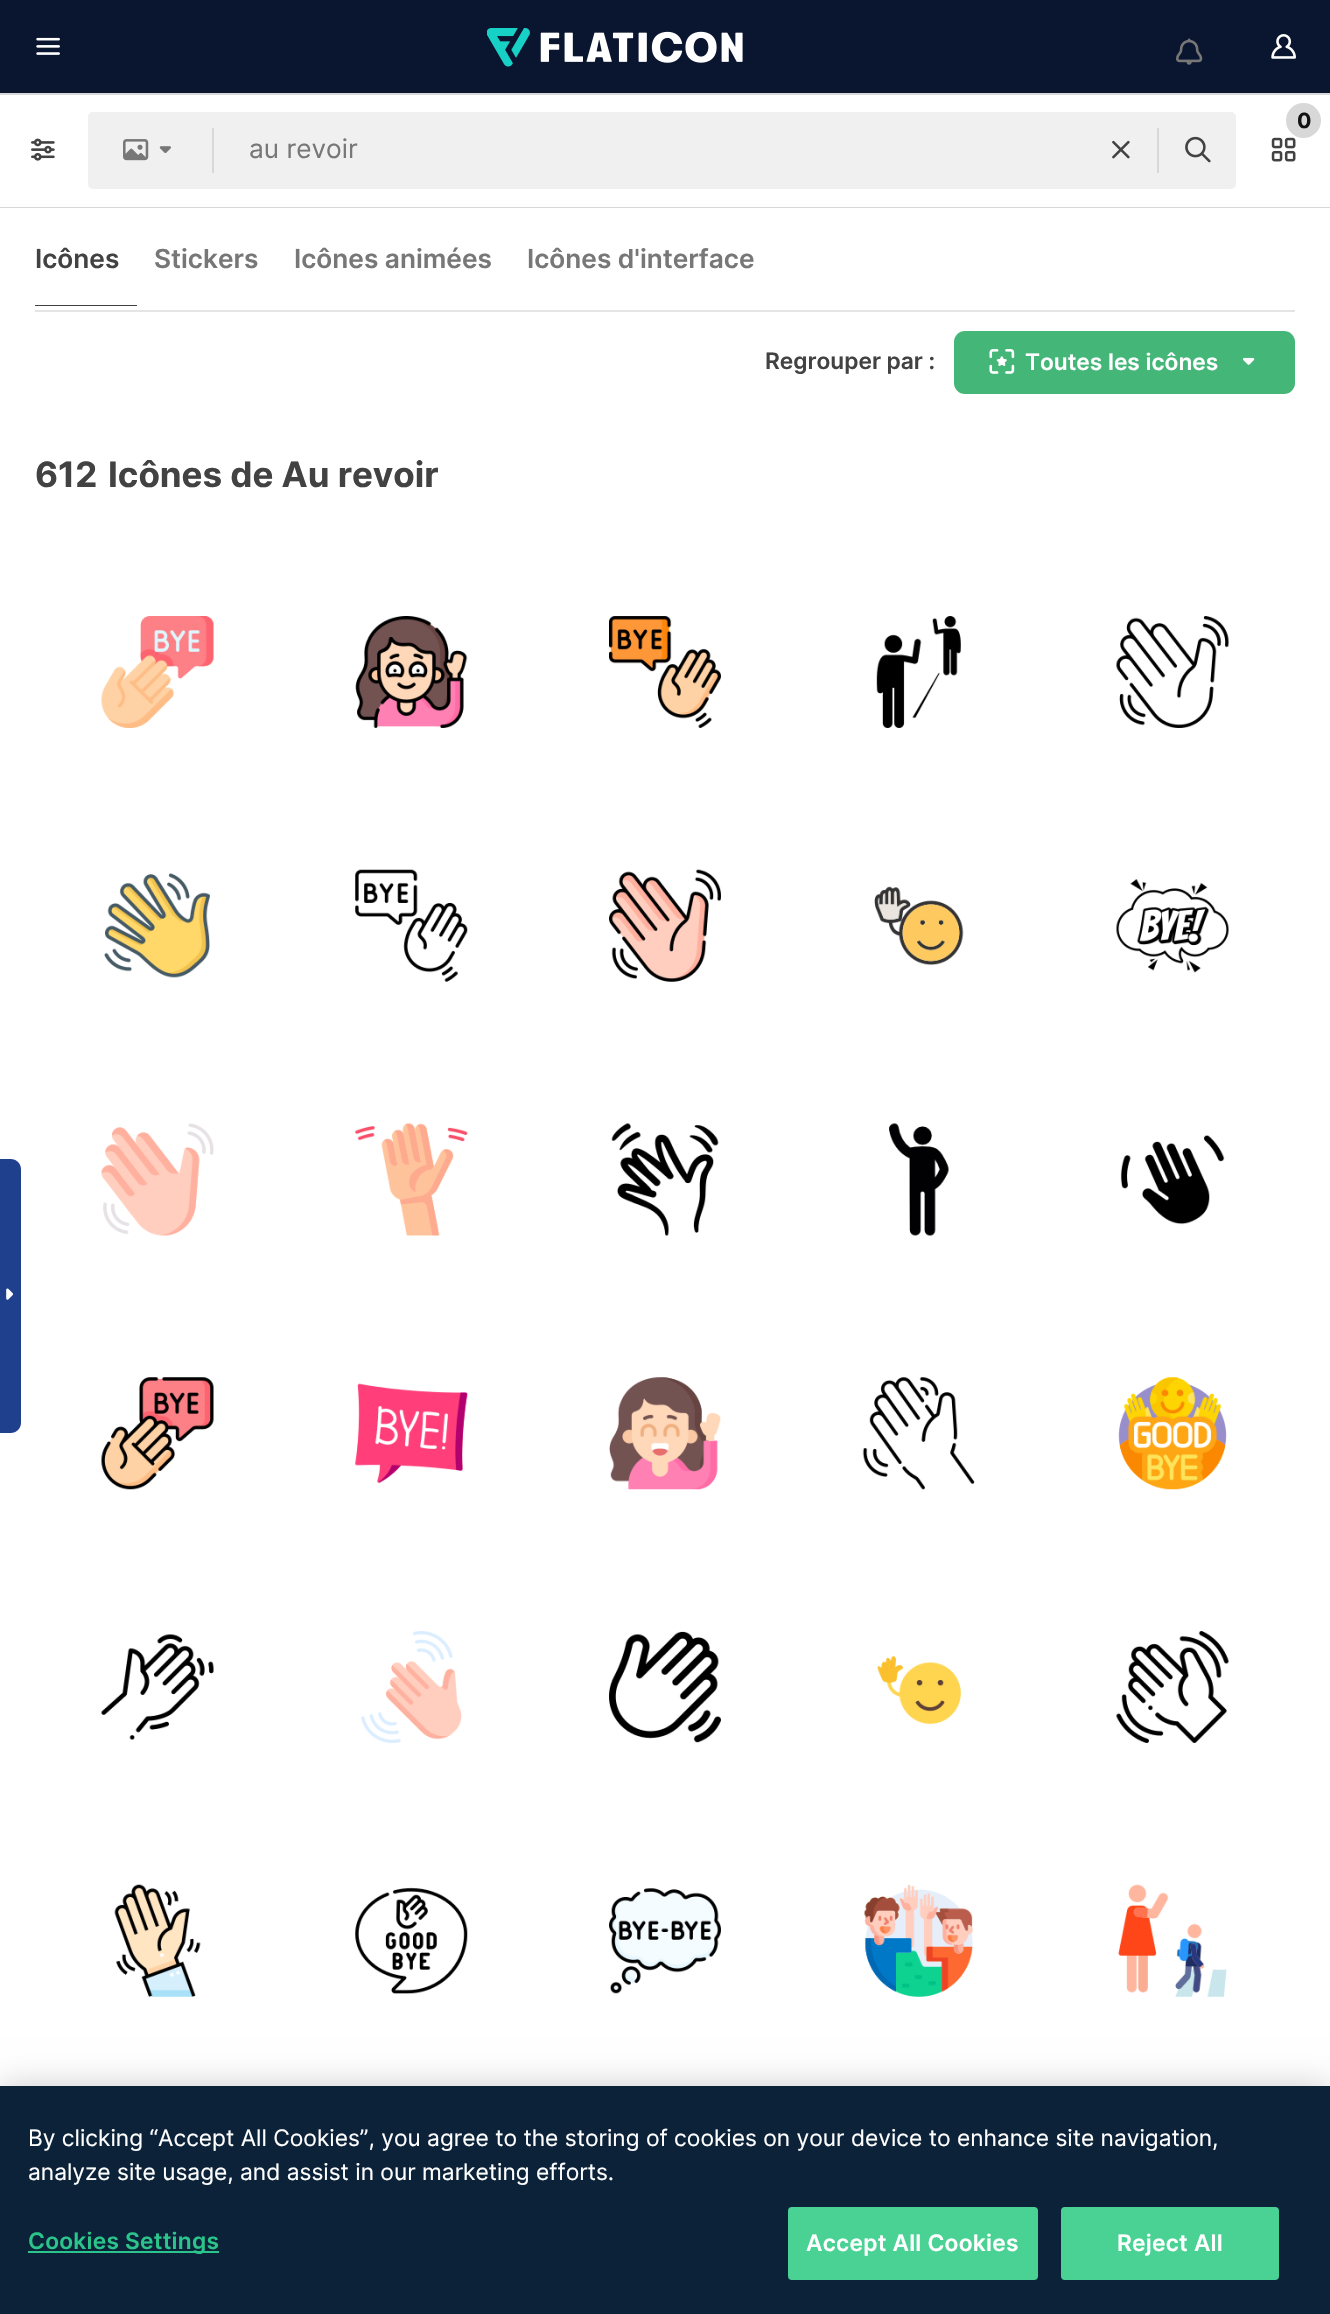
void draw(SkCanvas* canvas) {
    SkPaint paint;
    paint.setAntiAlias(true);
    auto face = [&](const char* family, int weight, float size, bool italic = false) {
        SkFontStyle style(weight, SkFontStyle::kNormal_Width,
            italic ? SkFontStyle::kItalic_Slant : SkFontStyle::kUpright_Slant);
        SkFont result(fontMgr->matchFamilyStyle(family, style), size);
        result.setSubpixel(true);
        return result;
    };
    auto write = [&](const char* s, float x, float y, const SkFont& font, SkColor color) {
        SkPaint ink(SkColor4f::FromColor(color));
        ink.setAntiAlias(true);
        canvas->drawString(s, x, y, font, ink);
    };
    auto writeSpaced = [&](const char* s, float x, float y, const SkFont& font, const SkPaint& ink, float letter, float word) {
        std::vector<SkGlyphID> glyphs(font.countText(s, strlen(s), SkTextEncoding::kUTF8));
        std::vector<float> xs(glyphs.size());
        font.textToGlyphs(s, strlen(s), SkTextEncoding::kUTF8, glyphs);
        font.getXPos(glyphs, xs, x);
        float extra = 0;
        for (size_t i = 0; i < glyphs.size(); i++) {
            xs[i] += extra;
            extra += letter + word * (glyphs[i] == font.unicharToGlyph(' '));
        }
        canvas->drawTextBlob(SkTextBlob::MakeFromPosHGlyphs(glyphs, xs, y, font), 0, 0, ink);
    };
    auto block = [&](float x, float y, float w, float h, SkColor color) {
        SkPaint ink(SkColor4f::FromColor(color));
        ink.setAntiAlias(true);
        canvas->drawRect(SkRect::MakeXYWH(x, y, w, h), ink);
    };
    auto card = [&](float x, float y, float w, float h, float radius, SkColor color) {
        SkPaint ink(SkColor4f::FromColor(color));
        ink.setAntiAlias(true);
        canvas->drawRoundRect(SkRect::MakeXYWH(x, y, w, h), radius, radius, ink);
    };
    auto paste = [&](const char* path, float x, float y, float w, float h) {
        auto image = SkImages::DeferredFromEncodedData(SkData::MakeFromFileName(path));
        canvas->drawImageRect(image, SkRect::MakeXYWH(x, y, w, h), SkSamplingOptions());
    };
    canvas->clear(SK_ColorWHITE);
    block(0, 0, 1330, 93, SkColorSetRGB(10, 21, 47));
    paste("pic1.png", 36, 37, 24, 18);
    paste("pic2.png", 487, 28, 256, 39);
    paste("pic3.png", 1176, 38, 27, 27);
    paste("pic4.png", 1271, 34, 25, 25);
    paint.setStyle(SkPaint::kStroke_Style);
    paint.setStrokeWidth(2);
    paint.setColor(SkColorSetRGB(216, 216, 216));
    canvas->drawRect(SkRect::MakeXYWH(-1, 94, 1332, 113), paint);
    block(0, 206, 1330, 1, SK_ColorWHITE);
    paste("pic5.png", 1271, 137, 25, 25);
    paint.setStyle(SkPaint::kFill_Style);
    canvas->drawCircle(1303.5f, 120.5f, 17.5f, paint);
    auto kFont1 = face("Inter", 700, 21);
    write("0", 1297, 128, kFont1, SkColorSetRGB(18, 18, 18));
    paste("pic6.png", 31, 138, 24, 23);
    card(88, 112, 1148, 77, 5, SkColorSetRGB(240, 240, 240));
    paste("pic7.png", 123, 139, 26, 22);
    paste("pic8.png", 159, 146, 12, 7);
    block(212, 128, 2, 45, SkColorSetRGB(216, 216, 216));
    auto kFont2 = face("Inter", 400, 26.25f);
    write("au revoir", 249, 158, kFont2, SkColorSetRGB(119, 119, 119));
    paste("pic9.png", 1112, 140, 18, 19);
    block(1157, 128, 2, 45, SkColorSetRGB(216, 216, 216));
    paste("pic10.png", 1185, 136, 26, 27);
    block(35, 305, 102, 1, SkColorSetRGB(66, 66, 66));
    auto kFont3 = face("Inter", 600, 26.25f);
    write("Icônes", 35, 268, kFont3, SkColorSetRGB(66, 66, 66));
    write("Stickers", 154, 268, kFont3, SkColorSetRGB(119, 119, 119));
    write("Icônes animées", 294, 268, kFont3, SkColorSetRGB(119, 119, 119));
    write("Icônes d'interface", 527, 268, kFont3, SkColorSetRGB(119, 119, 119));
    auto kFont4 = face("Inter", 600, 22.75f);
    write("Regrouper par :", 765, 369, kFont4, SkColorSetRGB(66, 66, 66));
    card(954, 331, 341, 63, 11, SkColorSetRGB(68, 182, 120));
    paste("pic11.png", 989, 349, 26, 25);
    write("Toutes les icônes", 1025, 370, kFont4, SK_ColorWHITE);
    paste("pic12.png", 1243, 357, 12, 8);
    block(35, 310, 1260, 2, SkColorSetRGB(229, 229, 229));
    auto kFont5 = face("Inter", 700, 35);
    write("612", 35, 487, kFont5, SkColorSetRGB(66, 66, 66));
    write("Icônes de Au revoir", 108, 487, kFont5, SkColorSetRGB(66, 66, 66));
    paste("pic13.png", 101, 616, 113, 112);
    paste("pic14.png", 355, 616, 113, 112);
    paste("pic15.png", 609, 616, 112, 112);
    paste("pic16.png", 876, 616, 85, 112);
    paste("pic17.png", 1116, 616, 113, 112);
    paste("pic18.png", 104, 873, 106, 105);
    paste("pic19.png", 355, 869, 113, 113);
    paste("pic20.png", 609, 869, 112, 113);
    paste("pic21.png", 874, 886, 90, 80);
    paste("pic22.png", 1116, 879, 113, 94);
    paste("pic23.png", 101, 1123, 113, 113);
    paste("pic24.png", 355, 1123, 113, 113);
    paste("pic25.png", 611, 1123, 108, 113);
    paste("pic26.png", 889, 1123, 60, 113);
    paste("pic27.png", 1120, 1135, 105, 90);
    paste("pic28.png", 101, 1377, 113, 113);
    paste("pic29.png", 355, 1383, 113, 101);
    paste("pic30.png", 609, 1377, 112, 113);
    paste("pic31.png", 862, 1377, 113, 113);
    paste("pic32.png", 1118, 1377, 109, 113);
    paste("pic33.png", 101, 1634, 113, 106);
    paste("pic34.png", 361, 1631, 101, 112);
    paste("pic35.png", 609, 1631, 112, 112);
    paste("pic36.png", 877, 1655, 84, 69);
    paste("pic37.png", 1116, 1631, 113, 112);
    paste("pic38.png", 114, 1884, 87, 113);
    paste("pic39.png", 355, 1887, 113, 107);
    paste("pic40.png", 609, 1888, 112, 106);
    paste("pic41.png", 864, 1884, 109, 113);
    paste("pic42.png", 1118, 1884, 109, 113);
    paint.setColor(SkColorSetRGB(31, 64, 140));
    canvas->drawPath(SkPathBuilder().moveTo(0, 1159).lineTo(10.5f, 1159).cubicTo(16.5f, 1159, 21, 1163.5f, 21, 1169.5f).lineTo(21, 1422.5f).cubicTo(21, 1428.5f, 16.5f, 1433, 10.5f, 1433).lineTo(0, 1433).close().detach(), paint);
    paste("pic43.png", 6, 1288, 7, 12);
    paint.setColor(SkColorSetARGB(51, 0, 0, 0));
    paint.setMaskFilter(SkMaskFilter::MakeBlur(kNormal_SkBlurStyle, 16));
    canvas->drawRect(SkRect::MakeXYWH(0, 2086, 1330, 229), paint);
    paint.setMaskFilter(nullptr);
    block(0, 2086, 1330, 228, SkColorSetRGB(11, 34, 57));
    auto kFont6 = face("Inter", 400, 22.75f);
    write("By clicking “Accept All Cookies”, you agree to the storing of cookies on your device to enhance site navigation,", 28, 2146, kFont6, SK_ColorWHITE);
    write("analyze site usage, and assist in our marketing efforts.", 28, 2180, kFont6, SK_ColorWHITE);
    block(28, 2251, 191, 2, SkColorSetRGB(43, 196, 138));
    paint.setColor(SkColorSetRGB(43, 196, 138));
    writeSpaced("Cookies Settings", 28, 2249, kFont4, paint, 0.25f, 0);
    paint.setColor(SkColorSetRGB(74, 210, 149));
    canvas->drawRoundRect(SkRect::MakeXYWH(789, 2208, 248, 71), 3, 3, paint);
    paint.setStyle(SkPaint::kStroke_Style);
    canvas->drawRoundRect(SkRect::MakeXYWH(789, 2208, 248, 71), 3, 3, paint);
    paint.setStyle(SkPaint::kFill_Style);
    paint.setColor(SK_ColorWHITE);
    writeSpaced("Accept All Cookies", 806, 2251, kFont4, paint, 0.25f, 0);
    paint.setColor(SkColorSetRGB(74, 210, 149));
    canvas->drawRoundRect(SkRect::MakeXYWH(1062, 2208, 216, 71), 3, 3, paint);
    paint.setStyle(SkPaint::kStroke_Style);
    canvas->drawRoundRect(SkRect::MakeXYWH(1062, 2208, 216, 71), 3, 3, paint);
    paint.setStyle(SkPaint::kFill_Style);
    paint.setColor(SK_ColorWHITE);
    writeSpaced("Reject All", 1117, 2251, kFont4, paint, 0.25f, 0);
}
